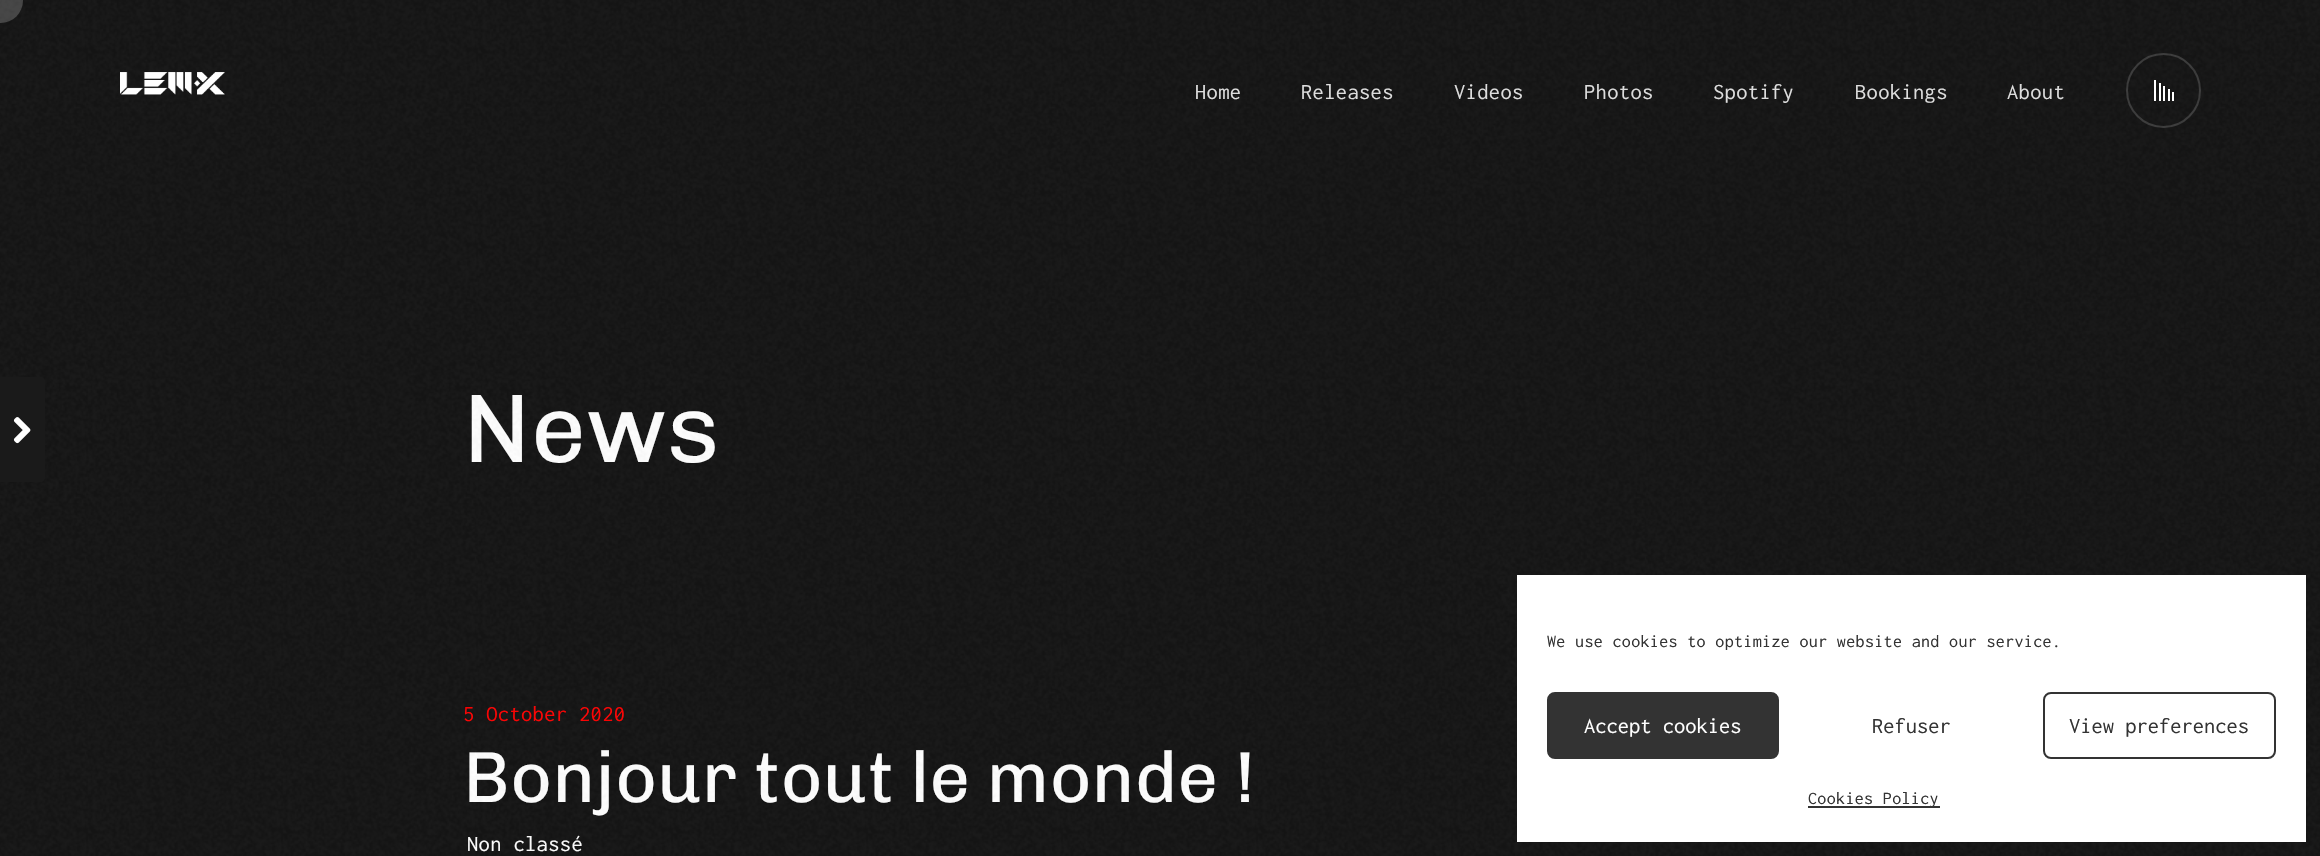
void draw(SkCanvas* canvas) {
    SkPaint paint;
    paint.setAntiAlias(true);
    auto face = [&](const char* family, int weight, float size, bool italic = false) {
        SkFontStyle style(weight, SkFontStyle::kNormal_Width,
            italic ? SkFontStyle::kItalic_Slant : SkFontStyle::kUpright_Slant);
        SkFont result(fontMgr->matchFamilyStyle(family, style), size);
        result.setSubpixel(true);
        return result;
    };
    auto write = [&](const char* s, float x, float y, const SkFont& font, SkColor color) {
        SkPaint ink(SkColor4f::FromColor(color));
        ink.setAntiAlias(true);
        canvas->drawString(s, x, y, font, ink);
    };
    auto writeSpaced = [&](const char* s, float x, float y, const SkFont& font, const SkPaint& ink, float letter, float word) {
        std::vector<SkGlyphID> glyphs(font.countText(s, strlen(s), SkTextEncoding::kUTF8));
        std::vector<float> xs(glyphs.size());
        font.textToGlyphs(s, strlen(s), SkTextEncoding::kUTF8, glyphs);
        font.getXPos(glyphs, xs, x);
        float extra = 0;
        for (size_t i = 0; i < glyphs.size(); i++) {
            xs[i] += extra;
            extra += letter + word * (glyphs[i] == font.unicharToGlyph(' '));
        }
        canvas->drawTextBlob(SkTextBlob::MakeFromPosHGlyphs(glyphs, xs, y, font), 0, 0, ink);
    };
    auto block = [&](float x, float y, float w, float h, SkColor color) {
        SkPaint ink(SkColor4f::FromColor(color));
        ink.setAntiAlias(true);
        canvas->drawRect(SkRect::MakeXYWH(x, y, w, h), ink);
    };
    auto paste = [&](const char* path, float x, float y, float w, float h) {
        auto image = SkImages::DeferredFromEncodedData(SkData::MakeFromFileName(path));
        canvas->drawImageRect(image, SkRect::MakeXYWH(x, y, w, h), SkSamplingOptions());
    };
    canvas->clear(SkColorSetRGB(18, 18, 18));
    auto kFont1 = face("Chivo", 400, 97.5f);
    write("News", 463, 462, kFont1, SK_ColorWHITE);
    auto kFont2 = face("Inconsolata", 400, 22.5f);
    paint.setColor(SkColorSetRGB(255, 0, 0));
    writeSpaced("5 October 2020", 463, 721, kFont2, paint, 0.35f, 0);
    auto kFont3 = face("Chivo", 400, 72);
    write("Bonjour tout le monde !", 463, 802, kFont3, SK_ColorWHITE);
    paint.setColor(SK_ColorWHITE);
    writeSpaced("Non classé", 467, 851, kFont2, paint, 0.35f, 0);
    paste("pic1.png", 0, 0, 2320, 856);
    paint.setColor(SkColorSetARGB(51, 255, 255, 255));
    canvas->drawCircle(0.5f, 0.5f, 22.5f, paint);
    paste("pic2.png", 120, 72, 105, 23);
    paint.setColor(SkColorSetRGB(221, 221, 221));
    writeSpaced("Home", 1195, 99, kFont2, paint, 0.35f, 0);
    writeSpaced("Releases", 1301, 99, kFont2, paint, 0.35f, 0);
    writeSpaced("Videos", 1454, 99, kFont2, paint, 0.35f, 0);
    writeSpaced("Photos", 1584, 99, kFont2, paint, 0.35f, 0);
    writeSpaced("Spotify", 1713, 99, kFont2, paint, 0.35f, 0);
    writeSpaced("Bookings", 1855, 99, kFont2, paint, 0.35f, 0);
    writeSpaced("About", 2007, 99, kFont2, paint, 0.35f, 0);
    paint.setStyle(SkPaint::kStroke_Style);
    paint.setStrokeWidth(2);
    paint.setColor(SkColorSetARGB(41, 255, 255, 255));
    canvas->drawCircle(2163.5f, 90.5f, 36.5f, paint);
    block(2154, 80, 2, 21, SK_ColorWHITE);
    block(2159, 83, 2, 18, SK_ColorWHITE);
    block(2163, 86, 2, 15, SK_ColorWHITE);
    block(2168, 89, 2, 12, SK_ColorWHITE);
    block(2172, 92, 2, 9, SK_ColorWHITE);
    paint.setStyle(SkPaint::kFill_Style);
    paint.setColor(SkColorSetRGB(26, 26, 26));
    canvas->drawPath(SkPathBuilder().moveTo(0, 377).lineTo(40, 377).cubicTo(43, 377, 45, 379, 45, 382).lineTo(45, 477).cubicTo(45, 480, 43, 482, 40, 482).lineTo(0, 482).close().detach(), paint);
    paste("pic3.png", 13, 417, 18, 27);
    block(1517, 575, 789, 267, SK_ColorWHITE);
    auto kFont4 = face("Inconsolata", 400, 18);
    paint.setColor(SkColorSetRGB(51, 51, 51));
    writeSpaced("We use cookies to optimize our website and our service.", 1547, 647, kFont4, paint, 0.35f, 0);
    canvas->drawRoundRect(SkRect::MakeXYWH(1548, 693, 230, 65), 7, 7, paint);
    paint.setStyle(SkPaint::kStroke_Style);
    canvas->drawRoundRect(SkRect::MakeXYWH(1548, 693, 230, 65), 7, 7, paint);
    write("Accept cookies", 1584, 733, kFont2, SK_ColorWHITE);
    write("Refuser", 1872, 733, kFont2, SkColorSetRGB(51, 51, 51));
    canvas->drawRoundRect(SkRect::MakeXYWH(2044, 693, 231, 65), 7, 7, paint);
    write("View preferences", 2069, 733, kFont2, SkColorSetRGB(51, 51, 51));
    block(1808, 806, 132, 2, SkColorSetRGB(51, 51, 51));
    paint.setStyle(SkPaint::kFill_Style);
    writeSpaced("Cookies Policy", 1808, 804, kFont4, paint, 0.35f, 0);
}
